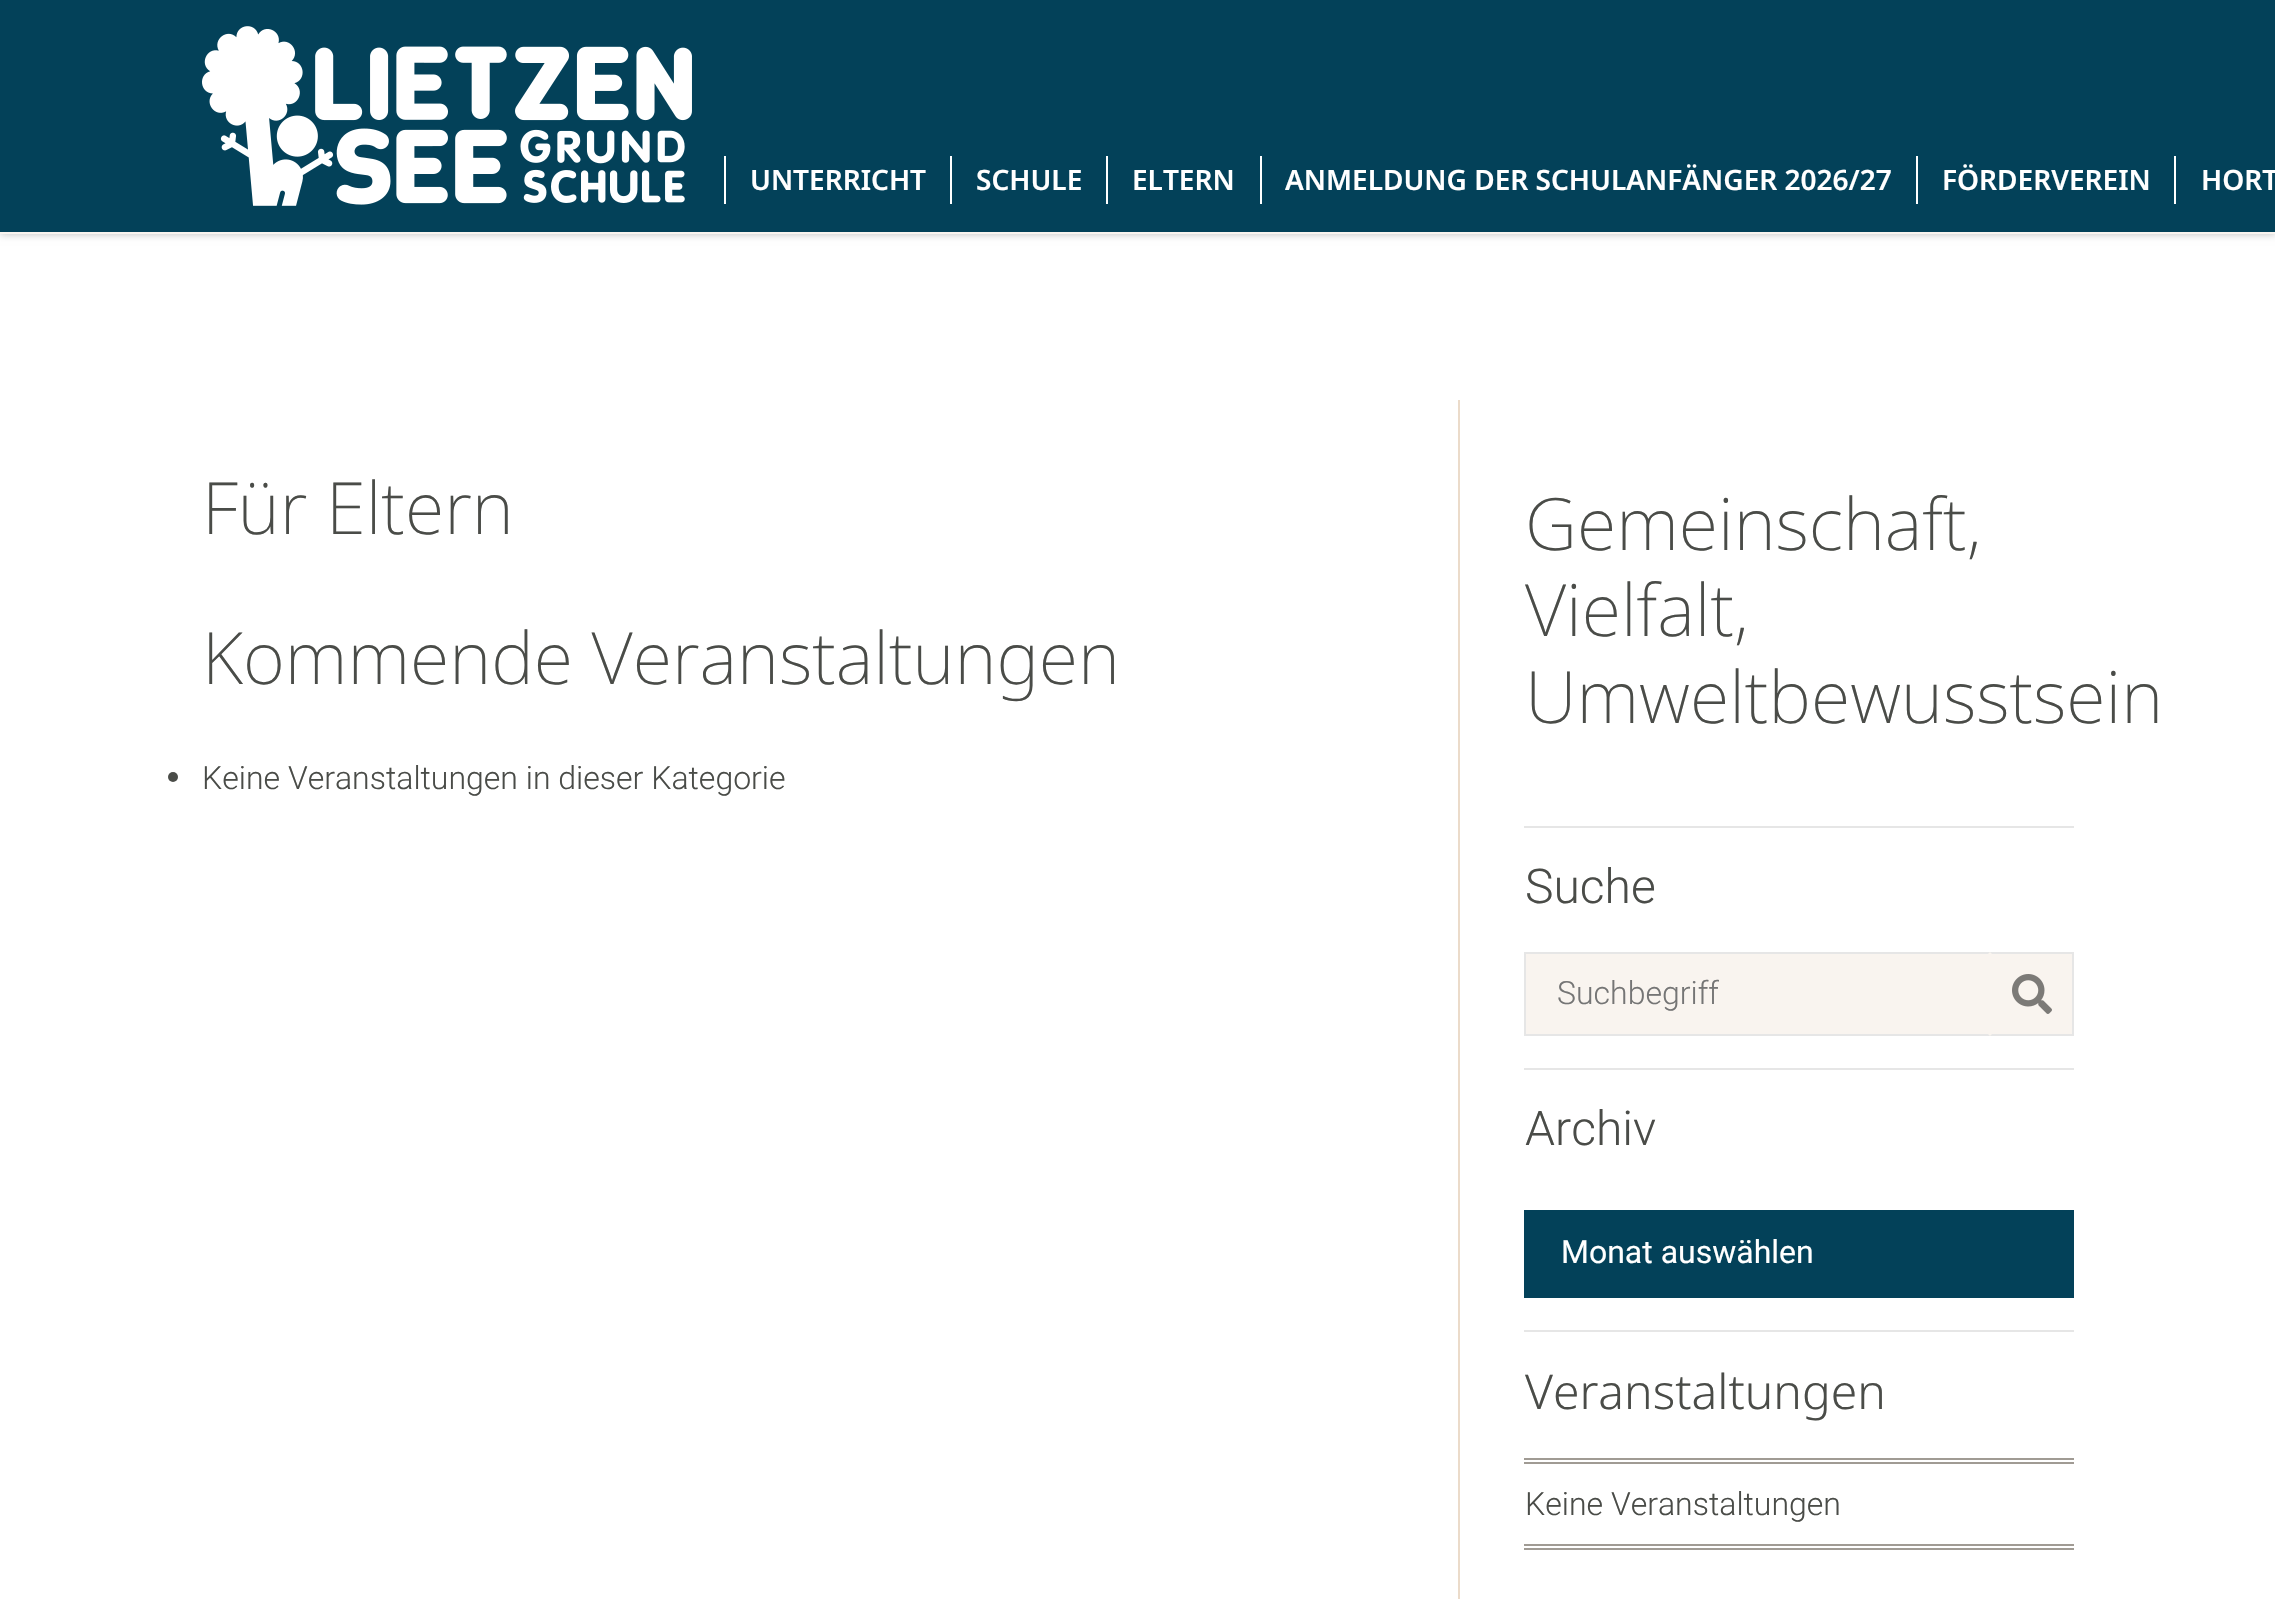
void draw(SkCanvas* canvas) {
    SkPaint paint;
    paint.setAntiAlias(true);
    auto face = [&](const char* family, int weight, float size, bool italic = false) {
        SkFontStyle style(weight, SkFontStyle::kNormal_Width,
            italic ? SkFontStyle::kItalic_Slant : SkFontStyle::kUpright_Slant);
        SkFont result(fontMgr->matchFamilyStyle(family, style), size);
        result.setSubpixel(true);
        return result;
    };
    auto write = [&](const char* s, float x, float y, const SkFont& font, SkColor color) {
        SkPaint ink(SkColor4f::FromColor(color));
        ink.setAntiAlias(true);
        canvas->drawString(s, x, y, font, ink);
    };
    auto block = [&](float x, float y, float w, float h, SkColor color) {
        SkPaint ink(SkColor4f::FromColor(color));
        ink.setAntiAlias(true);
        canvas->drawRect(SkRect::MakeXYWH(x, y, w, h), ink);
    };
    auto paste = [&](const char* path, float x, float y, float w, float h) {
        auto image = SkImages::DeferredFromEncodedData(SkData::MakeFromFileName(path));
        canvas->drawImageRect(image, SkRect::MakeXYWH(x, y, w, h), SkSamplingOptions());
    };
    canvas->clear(SK_ColorWHITE);
    paint.setColor(SkColorSetARGB(64, 0, 0, 0));
    paint.setMaskFilter(SkMaskFilter::MakeBlur(kNormal_SkBlurStyle, 4));
    canvas->drawRect(SkRect::MakeXYWH(0, 0, 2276, 234), paint);
    paint.setMaskFilter(nullptr);
    block(0, 0, 2275, 232, SkColorSetRGB(3, 65, 89));
    block(0, 232, 2275, 2, SkColorSetRGB(249, 244, 239));
    paste("pic1.png", 202, 26, 490, 180);
    block(724, 156, 2, 48, SK_ColorWHITE);
    block(950, 156, 2, 48, SK_ColorWHITE);
    auto kFont1 = face("Noto Sans", 600, 28);
    write("UNTERRICHT", 750, 190, kFont1, SK_ColorWHITE);
    block(1106, 156, 2, 48, SK_ColorWHITE);
    write("SCHULE", 976, 190, kFont1, SK_ColorWHITE);
    block(1260, 156, 2, 48, SK_ColorWHITE);
    write("ELTERN", 1132, 190, kFont1, SK_ColorWHITE);
    block(1916, 156, 2, 48, SK_ColorWHITE);
    write("ANMELDUNG DER SCHULANFÄNGER 2026/27", 1285, 190, kFont1, SK_ColorWHITE);
    block(2174, 156, 2, 48, SK_ColorWHITE);
    write("FÖRDERVEREIN", 1942, 190, kFont1, SK_ColorWHITE);
    write("HORT", 2201, 190, kFont1, SK_ColorWHITE);
    block(1458, 400, 2, 1199, SkColorSetRGB(235, 219, 202));
    auto kFont2 = face("Noto Sans", 200, 72);
    write("Für Eltern", 202, 534, kFont2, SkColorSetRGB(74, 76, 72));
    write("Kommende Veranstaltungen", 202, 684, kFont2, SkColorSetRGB(74, 76, 72));
    paint.setColor(SkColorSetRGB(74, 76, 72));
    canvas->drawCircle(173, 777, 5, paint);
    auto kFont3 = face("Roboto", 300, 32);
    write("Keine Veranstaltungen in dieser Kategorie", 202, 789, kFont3, SkColorSetRGB(74, 76, 72));
    write("Gemeinschaft,", 1525, 550, kFont2, SkColorSetRGB(74, 76, 72));
    write("Vielfalt,", 1525, 636, kFont2, SkColorSetRGB(74, 76, 72));
    write("Umweltbewusstsein", 1525, 723, kFont2, SkColorSetRGB(74, 76, 72));
    block(1524, 826, 550, 2, SkColorSetRGB(230, 230, 230));
    auto kFont4 = face("Roboto", 300, 48);
    write("Suche", 1525, 903, kFont4, SkColorSetRGB(74, 76, 72));
    block(1526, 952, 546, 84, SkColorSetRGB(249, 244, 239));
    paint.setColor(SkColorSetRGB(230, 230, 230));
    canvas->drawPath(SkPathBuilder().moveTo(1524, 952).lineTo(1990, 952).lineTo(1988, 954).lineTo(1526, 954).close().detach(), paint);
    canvas->drawPath(SkPathBuilder().moveTo(1990, 1036).lineTo(1524, 1036).lineTo(1526, 1034).lineTo(1988, 1034).close().detach(), paint);
    block(1524, 952, 2, 84, SkColorSetRGB(230, 230, 230));
    write("Suchbegriff", 1557, 1004, kFont3, SkColorSetRGB(117, 117, 117));
    canvas->drawPath(SkPathBuilder().moveTo(1990, 952).lineTo(2074, 952).lineTo(2072, 954).lineTo(1992, 954).close().detach(), paint);
    block(2072, 952, 2, 84, SkColorSetRGB(230, 230, 230));
    canvas->drawPath(SkPathBuilder().moveTo(2074, 1036).lineTo(1990, 1036).lineTo(1992, 1034).lineTo(2072, 1034).close().detach(), paint);
    paste("pic2.png", 2012, 974, 40, 40);
    block(1524, 1068, 550, 2, SkColorSetRGB(230, 230, 230));
    write("Archiv", 1525, 1145, kFont4, SkColorSetRGB(74, 76, 72));
    block(1524, 1210, 550, 88, SkColorSetRGB(3, 65, 89));
    auto kFont5 = face("Roboto", 400, 32);
    write("Monat auswählen", 1561, 1263, kFont5, SK_ColorWHITE);
    block(1524, 1330, 550, 2, SkColorSetRGB(230, 230, 230));
    auto kFont6 = face("Noto Sans", 300, 48);
    write("Veranstaltungen", 1525, 1409, kFont6, SkColorSetRGB(74, 76, 72));
    block(1524, 1458, 550, 2, SkColorSetRGB(160, 155, 148));
    block(1524, 1548, 550, 2, SkColorSetRGB(160, 155, 148));
    block(1524, 1462, 550, 2, SkColorSetRGB(160, 155, 148));
    block(1524, 1544, 550, 2, SkColorSetRGB(160, 155, 148));
    write("Keine Veranstaltungen", 1525, 1515, kFont3, SkColorSetRGB(74, 76, 72));
}
